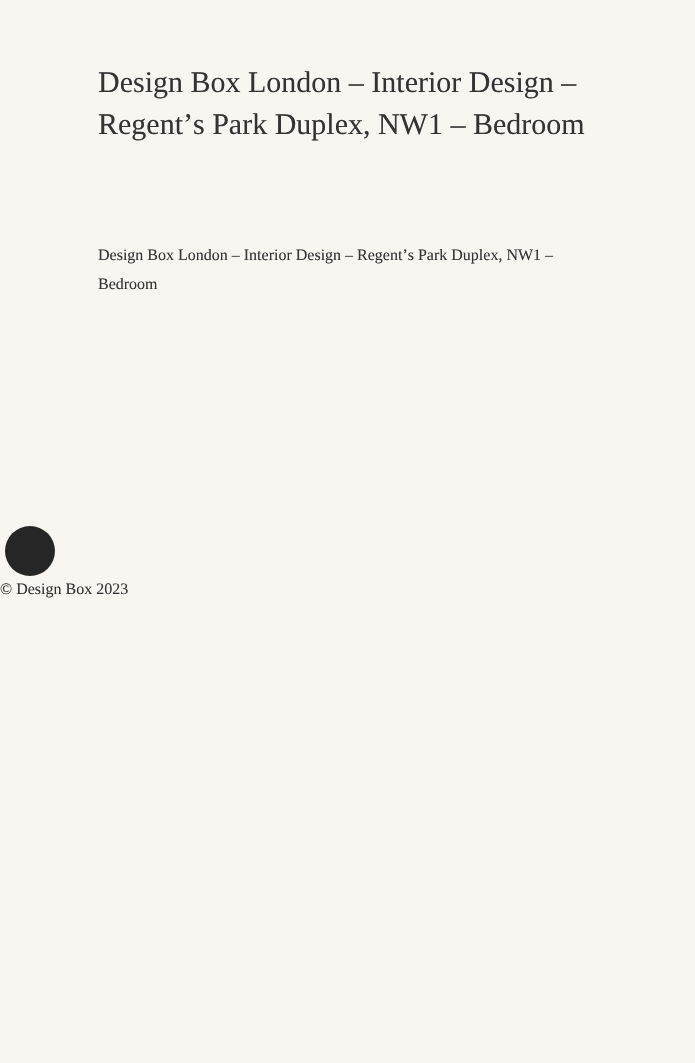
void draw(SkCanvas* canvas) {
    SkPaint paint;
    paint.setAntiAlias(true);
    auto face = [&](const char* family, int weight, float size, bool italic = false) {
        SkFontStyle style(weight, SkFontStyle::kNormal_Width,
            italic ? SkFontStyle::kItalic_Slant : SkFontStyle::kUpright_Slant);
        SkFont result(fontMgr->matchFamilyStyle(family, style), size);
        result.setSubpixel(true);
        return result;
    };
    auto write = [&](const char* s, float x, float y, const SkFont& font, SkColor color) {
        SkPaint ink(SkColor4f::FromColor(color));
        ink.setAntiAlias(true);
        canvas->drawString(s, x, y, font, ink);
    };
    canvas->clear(SkColorSetRGB(249, 245, 241));
    auto kFont1 = face("Liberation Serif", 400, 30);
    write("Design Box London – Interior Design –", 98, 92, kFont1, SkColorSetRGB(51, 51, 51));
    write("Regent’s Park Duplex, NW1 – Bedroom", 98, 134, kFont1, SkColorSetRGB(51, 51, 51));
    auto kFont2 = face("Liberation Serif", 400, 16);
    write("Design Box London – Interior Design – Regent’s Park Duplex, NW1 –", 98, 260, kFont2, SkColorSetRGB(51, 51, 51));
    write("Bedroom", 98, 289, kFont2, SkColorSetRGB(51, 51, 51));
    paint.setColor(SkColorSetRGB(38, 38, 38));
    canvas->drawCircle(30, 551, 25, paint);
    write("© Design Box 2023", 0, 594, kFont2, SkColorSetRGB(51, 51, 51));
}
